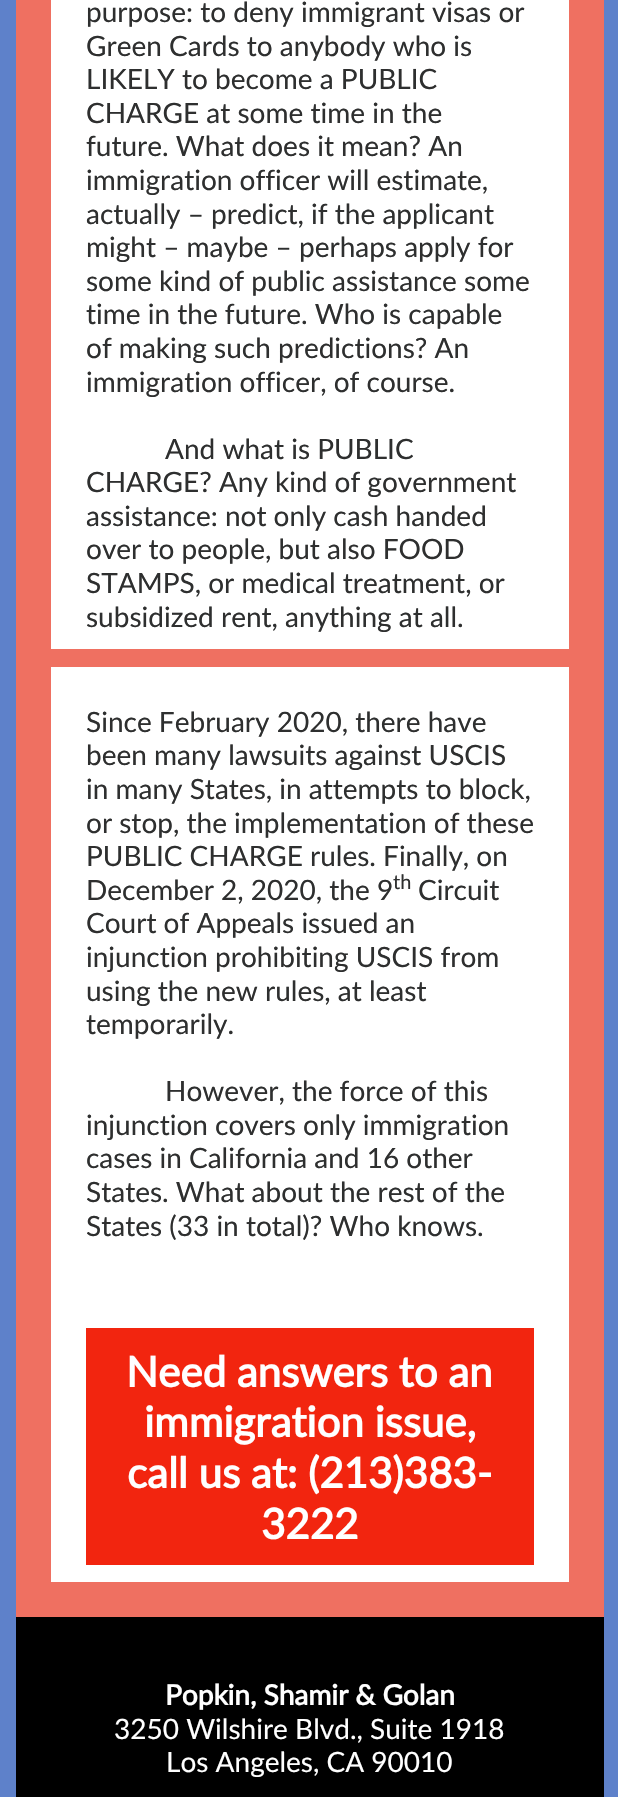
void draw(SkCanvas* canvas) {
    SkPaint paint;
    paint.setAntiAlias(true);
    auto face = [&](const char* family, int weight, float size, bool italic = false) {
        SkFontStyle style(weight, SkFontStyle::kNormal_Width,
            italic ? SkFontStyle::kItalic_Slant : SkFontStyle::kUpright_Slant);
        SkFont result(fontMgr->matchFamilyStyle(family, style), size);
        result.setSubpixel(true);
        return result;
    };
    auto write = [&](const char* s, float x, float y, const SkFont& font, SkColor color) {
        SkPaint ink(SkColor4f::FromColor(color));
        ink.setAntiAlias(true);
        canvas->drawString(s, x, y, font, ink);
    };
    auto block = [&](float x, float y, float w, float h, SkColor color) {
        SkPaint ink(SkColor4f::FromColor(color));
        ink.setAntiAlias(true);
        canvas->drawRect(SkRect::MakeXYWH(x, y, w, h), ink);
    };
    canvas->clear(SkColorSetRGB(94, 129, 202));
    block(16, 0, 588, 1617, SkColorSetRGB(239, 112, 97));
    block(51, 0, 518, 649, SK_ColorWHITE);
    auto kFont1 = face("Lato", 400, 28);
    write("purpose: to deny immigrant visas or", 86, 22, kFont1, SkColorSetRGB(46, 47, 47));
    write("Green Cards to anybody who is", 86, 56, kFont1, SkColorSetRGB(46, 47, 47));
    write("LIKELY to become a PUBLIC", 86, 89, kFont1, SkColorSetRGB(46, 47, 47));
    write("CHARGE at some time in the", 86, 123, kFont1, SkColorSetRGB(46, 47, 47));
    write("future. What does it mean? An", 86, 156, kFont1, SkColorSetRGB(46, 47, 47));
    write("immigration officer will estimate,", 86, 190, kFont1, SkColorSetRGB(46, 47, 47));
    write("actually – predict, if the applicant", 86, 224, kFont1, SkColorSetRGB(46, 47, 47));
    write("might – maybe – perhaps apply for", 86, 257, kFont1, SkColorSetRGB(46, 47, 47));
    write("some kind of public assistance some", 86, 291, kFont1, SkColorSetRGB(46, 47, 47));
    write("time in the future. Who is capable", 86, 324, kFont1, SkColorSetRGB(46, 47, 47));
    write("of making such predictions? An", 86, 358, kFont1, SkColorSetRGB(46, 47, 47));
    write("immigration officer, of course.", 86, 392, kFont1, SkColorSetRGB(46, 47, 47));
    write("And what is PUBLIC", 165, 459, kFont1, SkColorSetRGB(46, 47, 47));
    write("CHARGE? Any kind of government", 86, 492, kFont1, SkColorSetRGB(46, 47, 47));
    write("assistance: not only cash handed", 86, 526, kFont1, SkColorSetRGB(46, 47, 47));
    write("over to people, but also FOOD", 86, 559, kFont1, SkColorSetRGB(46, 47, 47));
    write("STAMPS, or medical treatment, or", 86, 593, kFont1, SkColorSetRGB(46, 47, 47));
    write("subsidized rent, anything at all.", 86, 627, kFont1, SkColorSetRGB(46, 47, 47));
    block(51, 667, 518, 915, SK_ColorWHITE);
    write("Since February 2020, there have", 86, 732, kFont1, SkColorSetRGB(46, 47, 47));
    write("been many lawsuits against USCIS", 86, 765, kFont1, SkColorSetRGB(46, 47, 47));
    write("in many States, in attempts to block,", 86, 799, kFont1, SkColorSetRGB(46, 47, 47));
    write("or stop, the implementation of these", 86, 833, kFont1, SkColorSetRGB(46, 47, 47));
    write("PUBLIC CHARGE rules. Finally, on", 86, 866, kFont1, SkColorSetRGB(46, 47, 47));
    write("December 2, 2020, the 9", 86, 900, kFont1, SkColorSetRGB(46, 47, 47));
    auto kFont2 = face("Lato", 400, 20);
    write("th", 393, 889, kFont2, SkColorSetRGB(46, 47, 47));
    write("Circuit", 418, 900, kFont1, SkColorSetRGB(46, 47, 47));
    write("Court of Appeals issued an", 86, 933, kFont1, SkColorSetRGB(46, 47, 47));
    write("injunction prohibiting USCIS from", 86, 967, kFont1, SkColorSetRGB(46, 47, 47));
    write("using the new rules, at least", 86, 1001, kFont1, SkColorSetRGB(46, 47, 47));
    write("temporarily.", 86, 1034, kFont1, SkColorSetRGB(46, 47, 47));
    write("However, the force of this", 165, 1101, kFont1, SkColorSetRGB(46, 47, 47));
    write("injunction covers only immigration", 86, 1135, kFont1, SkColorSetRGB(46, 47, 47));
    write("cases in California and 16 other", 86, 1168, kFont1, SkColorSetRGB(46, 47, 47));
    write("States. What about the rest of the", 86, 1202, kFont1, SkColorSetRGB(46, 47, 47));
    write("States (33 in total)? Who knows.", 86, 1236, kFont1, SkColorSetRGB(46, 47, 47));
    block(86, 1328, 448, 237, SkColorSetRGB(242, 37, 15));
    auto kFont3 = face("Lato", 700, 42);
    write("Need answers to an", 126, 1387, kFont3, SK_ColorWHITE);
    write("immigration issue,", 144, 1437, kFont3, SK_ColorWHITE);
    write("call us at: (213)383-", 127, 1488, kFont3, SK_ColorWHITE);
    write("3222", 261, 1539, kFont3, SK_ColorWHITE);
    block(16, 1617, 588, 180, SK_ColorBLACK);
    auto kFont4 = face("Lato", 700, 28);
    write("Popkin, Shamir & Golan", 165, 1705, kFont4, SK_ColorWHITE);
    write("3250 Wilshire Blvd., Suite 1918", 114, 1739, kFont1, SK_ColorWHITE);
    write("Los Angeles, CA 90010", 166, 1772, kFont1, SK_ColorWHITE);
}
